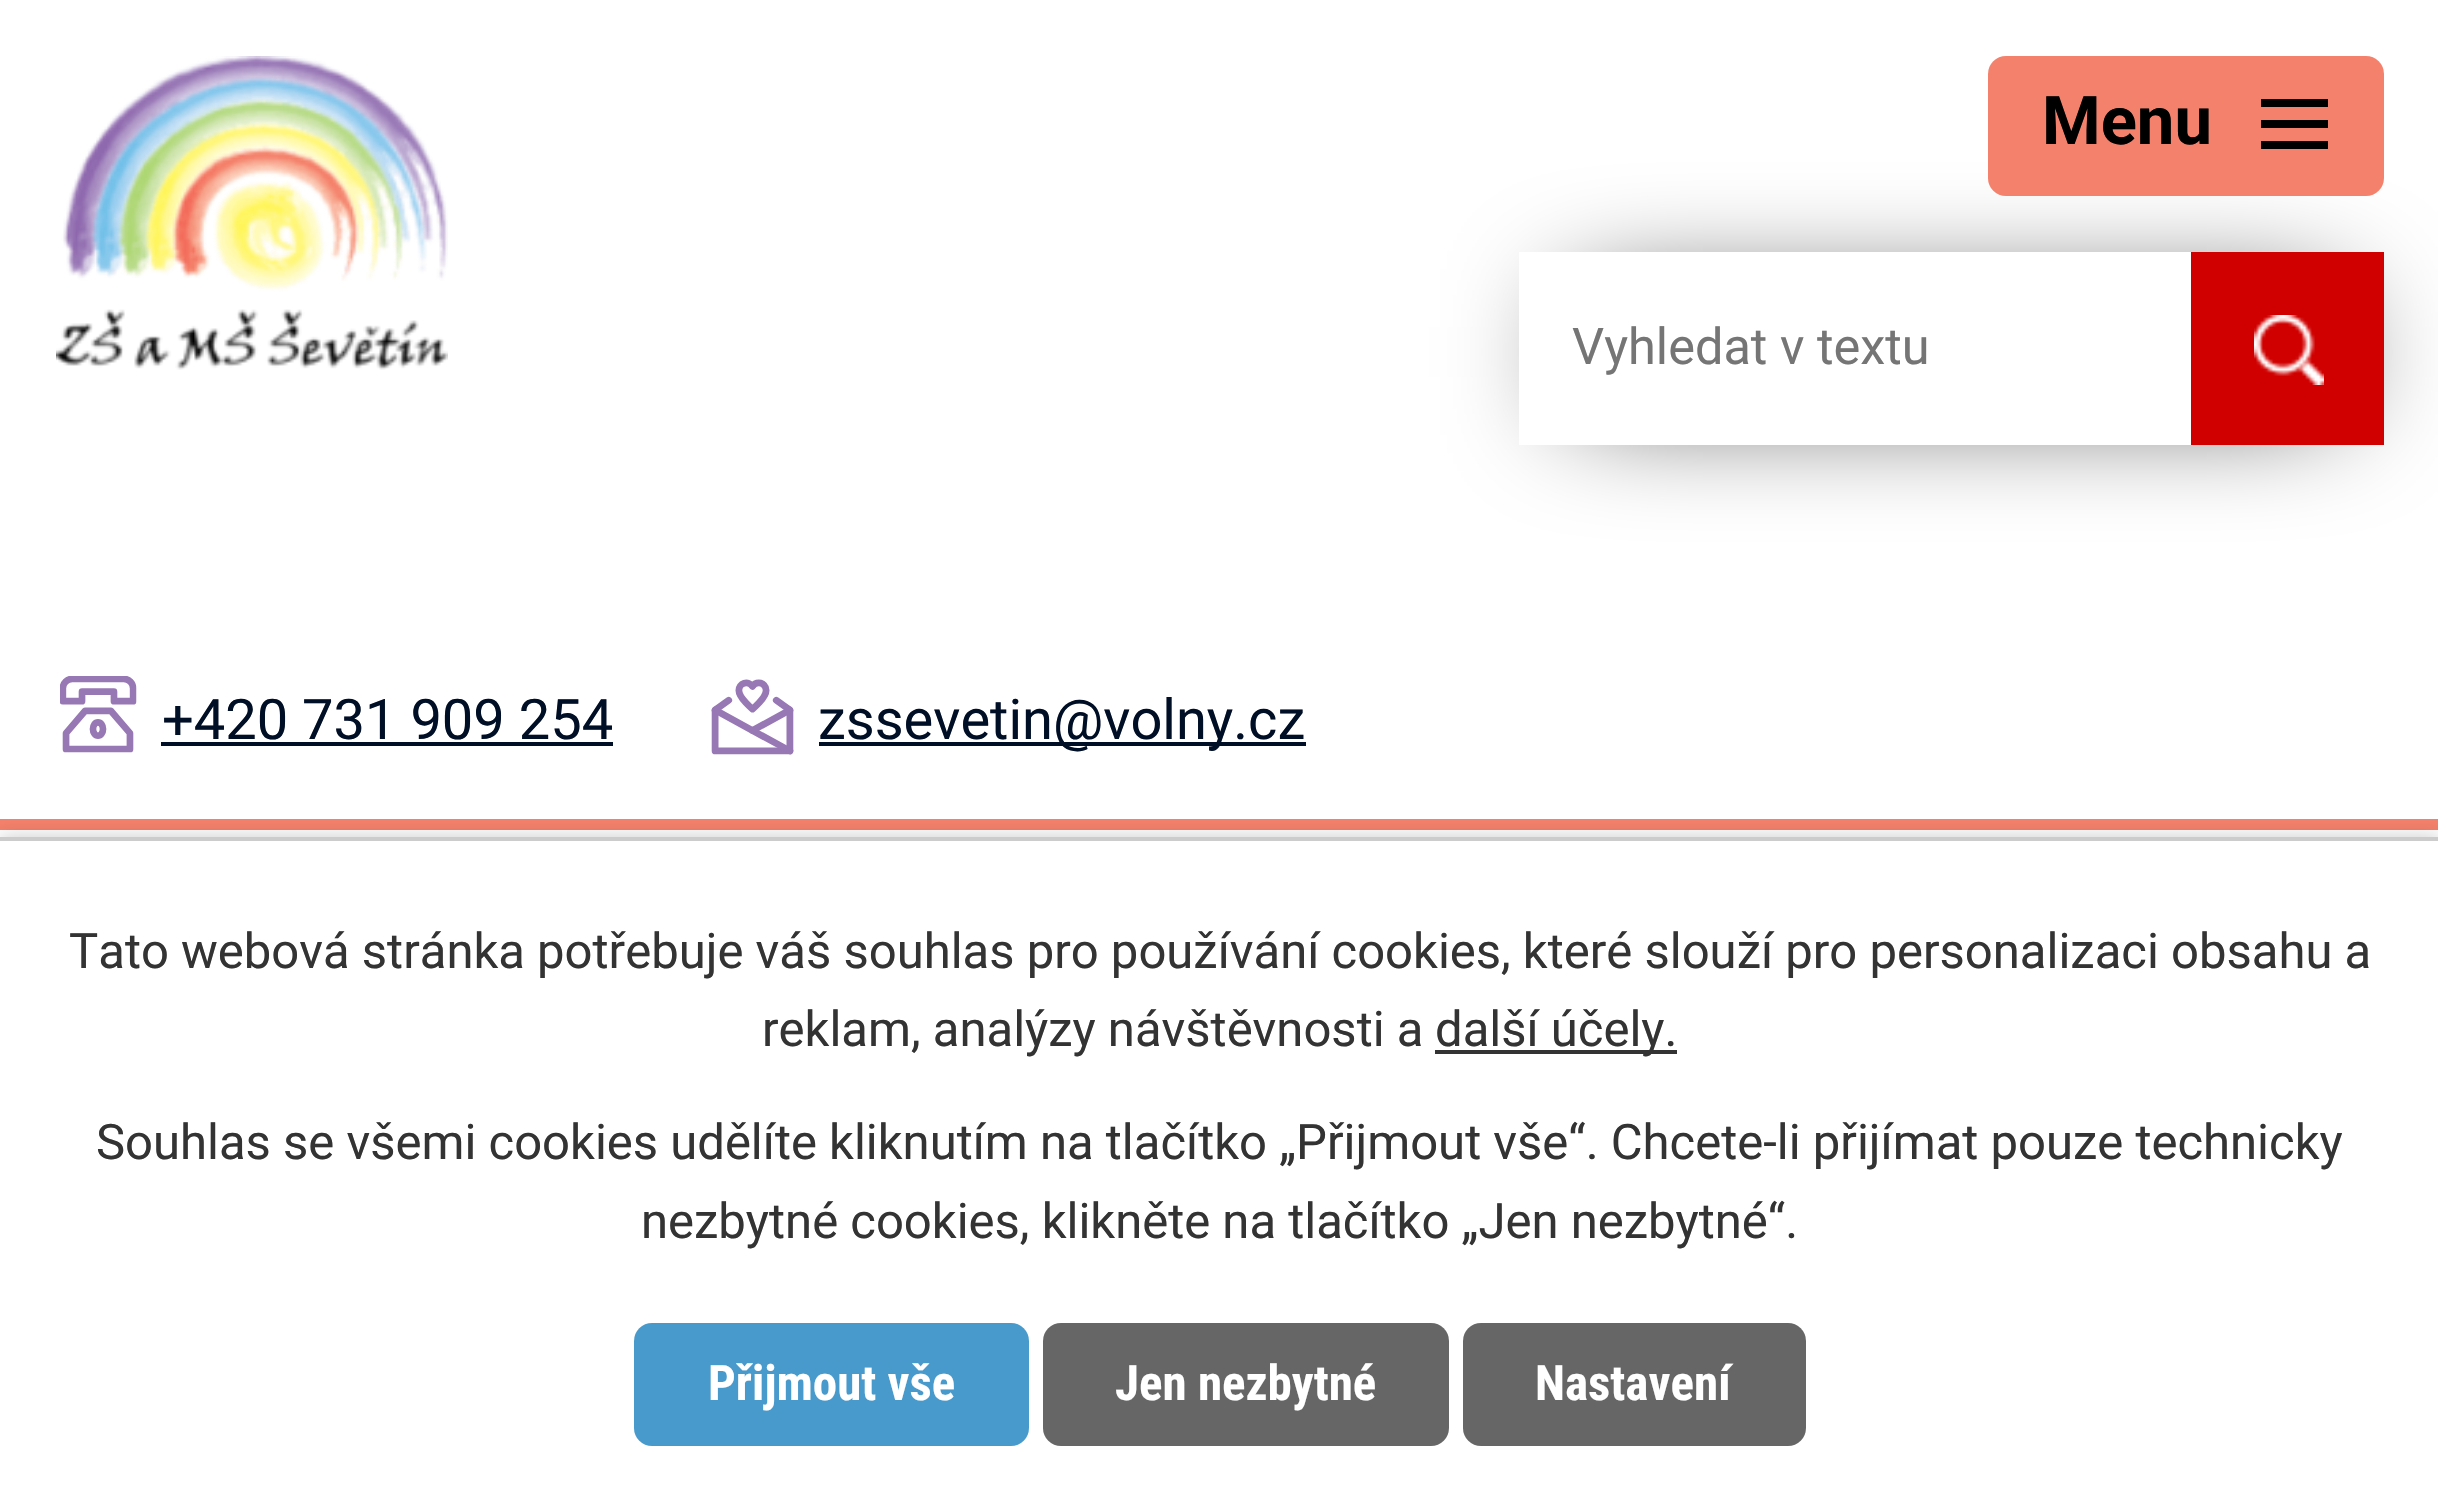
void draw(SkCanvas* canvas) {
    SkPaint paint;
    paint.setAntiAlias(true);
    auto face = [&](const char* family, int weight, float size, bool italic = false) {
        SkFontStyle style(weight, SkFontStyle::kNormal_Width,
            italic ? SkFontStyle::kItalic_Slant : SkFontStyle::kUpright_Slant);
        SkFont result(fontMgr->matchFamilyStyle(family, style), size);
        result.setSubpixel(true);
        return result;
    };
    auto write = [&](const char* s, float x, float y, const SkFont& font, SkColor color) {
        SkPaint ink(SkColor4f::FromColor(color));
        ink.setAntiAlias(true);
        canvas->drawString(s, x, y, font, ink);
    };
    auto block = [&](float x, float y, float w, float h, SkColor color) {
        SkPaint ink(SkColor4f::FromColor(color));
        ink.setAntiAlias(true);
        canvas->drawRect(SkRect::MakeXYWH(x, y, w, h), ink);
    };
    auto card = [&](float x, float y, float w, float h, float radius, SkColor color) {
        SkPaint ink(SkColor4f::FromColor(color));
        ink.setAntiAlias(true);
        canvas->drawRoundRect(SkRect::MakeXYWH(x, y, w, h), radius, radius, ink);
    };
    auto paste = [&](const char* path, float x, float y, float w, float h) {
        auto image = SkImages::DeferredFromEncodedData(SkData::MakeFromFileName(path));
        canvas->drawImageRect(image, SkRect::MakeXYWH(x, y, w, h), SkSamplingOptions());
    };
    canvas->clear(SK_ColorWHITE);
    paint.setColor(SK_ColorBLACK);
    paint.setMaskFilter(SkMaskFilter::MakeBlur(kNormal_SkBlurStyle, 61));
    canvas->drawRect(SkRect::MakeXYWH(1575, 308, 760, 88), paint);
    paint.setMaskFilter(nullptr);
    card(1988, 56, 396, 140, 18, SkColorSetRGB(244, 129, 107));
    auto kFont1 = face("Roboto", 700, 67);
    write("Menu", 2042, 144, kFont1, SK_ColorBLACK);
    canvas->drawPath(SkPathBuilder().moveTo(2261, 149).lineTo(2261, 141).lineTo(2328, 141).lineTo(2328, 149).close().moveTo(2261, 99).lineTo(2328, 99).lineTo(2328, 107).lineTo(2261, 107).close().moveTo(2261, 128).lineTo(2261, 120).lineTo(2328, 120).lineTo(2328, 128).close().detach(), paint);
    block(0, 819, 2438, 11, SkColorSetRGB(244, 129, 107));
    paste("pic1.png", 56, 56, 392, 314);
    block(1519, 252, 672, 193, SK_ColorWHITE);
    auto kFont2 = face("Roboto", 400, 50.5f);
    write("Vyhledat v textu", 1572, 364, kFont2, SkColorSetRGB(117, 117, 117));
    block(2191, 252, 193, 193, SkColorSetRGB(208, 0, 0));
    paste("pic2.png", 2254, 315, 70, 70);
    paste("pic3.png", 60, 676, 77, 77);
    auto kFont3 = face("Roboto", 400, 56);
    write("+420 731 909 254", 162, 739, kFont3, SkColorSetRGB(1, 15, 38));
    block(161, 742, 452, 4, SkColorSetRGB(1, 15, 38));
    paste("pic4.png", 711, 679, 83, 76);
    block(819, 742, 487, 4, SkColorSetRGB(1, 15, 38));
    write("zssevetin@volny.cz", 818, 739, kFont3, SkColorSetRGB(1, 15, 38));
    paint.setColor(SkColorSetARGB(51, 0, 0, 0));
    paint.setMaskFilter(SkMaskFilter::MakeBlur(kNormal_SkBlurStyle, 9));
    canvas->drawRect(SkRect::MakeXYWH(0, 837, 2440, 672), paint);
    paint.setMaskFilter(nullptr);
    block(0, 841, 2438, 665, SK_ColorWHITE);
    block(0, 837, 2438, 4, SkColorSetRGB(204, 204, 204));
    auto kFont4 = face("Roboto", 400, 49);
    write("Tato webová stránka potřebuje váš souhlas pro používání cookies, které slouží pro personalizaci obsahu a", 69, 968, kFont4, SkColorSetRGB(51, 51, 51));
    write("reklam, analýzy návštěvnosti a", 762, 1046, kFont4, SkColorSetRGB(51, 51, 51));
    block(1435, 1050, 242, 4, SkColorSetRGB(51, 51, 51));
    write("další účely.", 1435, 1046, kFont4, SkColorSetRGB(51, 51, 51));
    write("Souhlas se všemi cookies udělíte kliknutím na tlačítko „Přijmout vše“. Chcete-li přijímat pouze technicky", 96, 1159, kFont4, SkColorSetRGB(51, 51, 51));
    write("nezbytné cookies, klikněte na tlačítko „Jen nezbytné“.", 641, 1238, kFont4, SkColorSetRGB(51, 51, 51));
    card(634, 1323, 395, 123, 18, SkColorSetRGB(73, 154, 204));
    auto kFont5 = face("Roboto Condensed", 700, 49);
    write("Přijmout vše", 708, 1400, kFont5, SK_ColorWHITE);
    card(1043, 1323, 406, 123, 18, SkColorSetRGB(102, 102, 102));
    write("Jen nezbytné", 1115, 1400, kFont5, SK_ColorWHITE);
    card(1463, 1323, 343, 123, 18, SkColorSetRGB(102, 102, 102));
    write("Nastavení", 1535, 1400, kFont5, SK_ColorWHITE);
}
